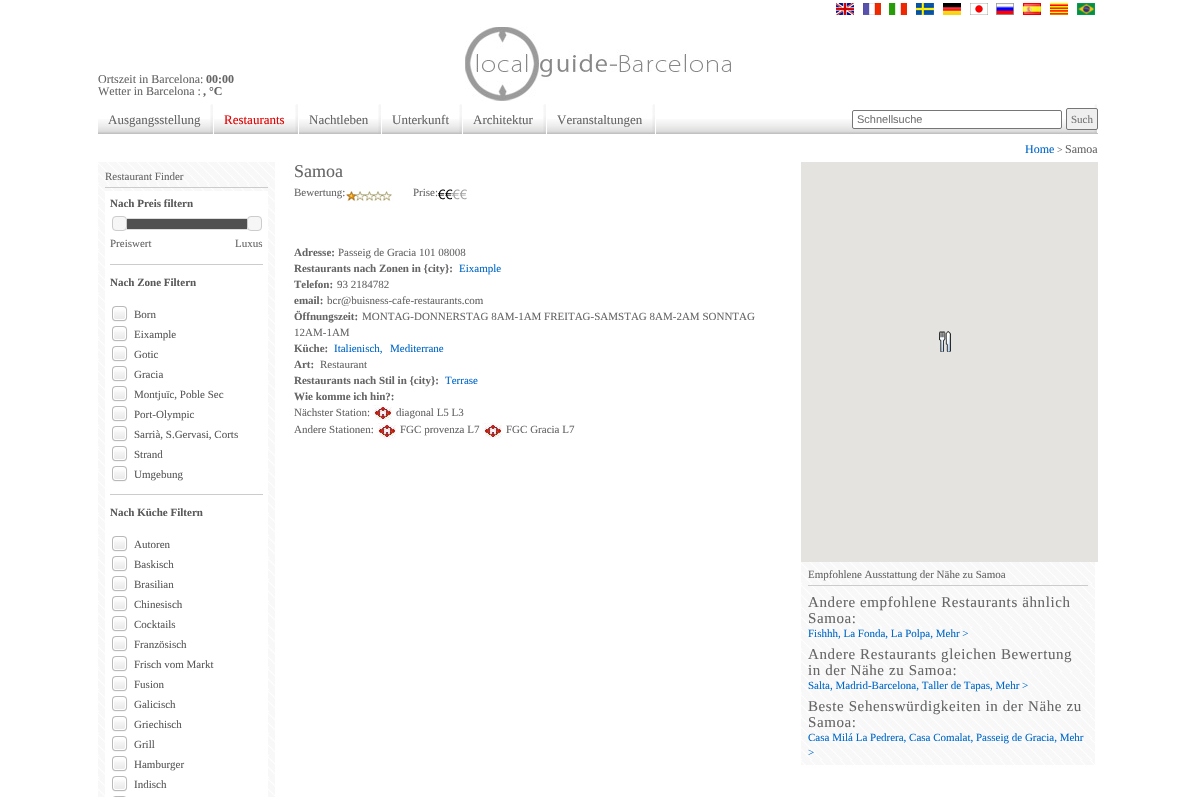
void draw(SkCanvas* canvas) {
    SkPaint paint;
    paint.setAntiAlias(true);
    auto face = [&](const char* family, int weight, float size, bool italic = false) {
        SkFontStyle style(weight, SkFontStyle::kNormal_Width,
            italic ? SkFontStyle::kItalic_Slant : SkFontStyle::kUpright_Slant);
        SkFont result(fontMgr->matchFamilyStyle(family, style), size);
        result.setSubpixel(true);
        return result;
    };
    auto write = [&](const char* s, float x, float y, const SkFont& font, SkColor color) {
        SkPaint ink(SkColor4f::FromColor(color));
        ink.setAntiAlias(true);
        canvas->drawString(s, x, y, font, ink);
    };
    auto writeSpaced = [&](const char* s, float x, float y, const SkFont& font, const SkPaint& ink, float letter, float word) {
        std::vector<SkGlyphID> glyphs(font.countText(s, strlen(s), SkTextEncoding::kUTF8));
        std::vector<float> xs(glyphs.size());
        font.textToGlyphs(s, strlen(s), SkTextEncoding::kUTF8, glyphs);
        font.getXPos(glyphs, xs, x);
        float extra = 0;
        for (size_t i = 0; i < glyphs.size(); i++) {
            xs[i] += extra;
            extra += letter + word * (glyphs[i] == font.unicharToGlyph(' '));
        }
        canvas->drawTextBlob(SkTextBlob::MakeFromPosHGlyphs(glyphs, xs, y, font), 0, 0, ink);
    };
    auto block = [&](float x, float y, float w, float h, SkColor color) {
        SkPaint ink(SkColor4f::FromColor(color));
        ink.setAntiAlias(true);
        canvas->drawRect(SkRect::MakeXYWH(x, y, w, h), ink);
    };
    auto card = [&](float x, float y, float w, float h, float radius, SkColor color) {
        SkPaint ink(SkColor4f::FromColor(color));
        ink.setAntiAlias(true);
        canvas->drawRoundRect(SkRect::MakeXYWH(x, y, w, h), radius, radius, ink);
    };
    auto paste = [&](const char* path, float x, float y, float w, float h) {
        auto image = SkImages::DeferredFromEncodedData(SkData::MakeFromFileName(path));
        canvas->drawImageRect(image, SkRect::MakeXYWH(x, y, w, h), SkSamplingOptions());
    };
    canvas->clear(SK_ColorWHITE);
    paste("pic1.png", 836, 3, 18, 12);
    paste("pic2.png", 863, 3, 18, 12);
    paste("pic3.png", 889, 3, 18, 12);
    paste("pic4.png", 916, 3, 18, 12);
    paste("pic5.png", 943, 3, 18, 12);
    paste("pic6.png", 970, 3, 18, 12);
    paste("pic7.png", 996, 3, 18, 12);
    paste("pic8.png", 1023, 3, 18, 12);
    paste("pic9.png", 1050, 3, 18, 12);
    paste("pic10.png", 1077, 3, 18, 12);
    auto kFont1 = face("Liberation Serif", 400, 12);
    write("Ortszeit in Barcelona:", 98, 83, kFont1, SkColorSetRGB(102, 102, 102));
    auto kFont2 = face("Liberation Serif", 700, 12);
    write("00:00", 206, 83, kFont2, SkColorSetRGB(102, 102, 102));
    write("Wetter in Barcelona :", 98, 95, kFont1, SkColorSetRGB(102, 102, 102));
    write(", °C", 203, 95, kFont2, SkColorSetRGB(102, 102, 102));
    paste("pic11.png", 465, 27, 266, 74);
    paste("pic12.png", 98, 119, 1000, 15);
    paste("pic13.png", 210, 104, 4, 30);
    auto kFont3 = face("Liberation Serif", 400, 13);
    write("Ausgangsstellung", 108, 124, kFont3, SkColorSetRGB(102, 102, 102));
    paste("pic13.png", 295, 104, 4, 30);
    write("Restaurants", 224, 124, kFont3, SkColorSetRGB(228, 4, 4));
    paste("pic13.png", 378, 104, 4, 30);
    write("Nachtleben", 309, 124, kFont3, SkColorSetRGB(102, 102, 102));
    paste("pic13.png", 459, 104, 4, 30);
    write("Unterkunft", 392, 124, kFont3, SkColorSetRGB(102, 102, 102));
    paste("pic13.png", 543, 104, 4, 30);
    write("Architektur", 473, 124, kFont3, SkColorSetRGB(102, 102, 102));
    paste("pic13.png", 652, 104, 4, 30);
    write("Veranstaltungen", 557, 124, kFont3, SkColorSetRGB(102, 102, 102));
    paste("pic14.png", 1094, 104, 4, 29);
    paint.setColor(SK_ColorWHITE);
    canvas->drawRoundRect(SkRect::MakeXYWH(852.5f, 110.5f, 209, 18), 1.5f, 1.5f, paint);
    paint.setStyle(SkPaint::kStroke_Style);
    paint.setStrokeWidth(1);
    paint.setColor(SkColorSetRGB(118, 118, 118));
    canvas->drawRoundRect(SkRect::MakeXYWH(852.5f, 110.5f, 209, 18), 1.5f, 1.5f, paint);
    auto kFont4 = face("Liberation Sans", 400, 11);
    write("Schnellsuche", 857, 123, kFont4, SkColorSetRGB(117, 117, 117));
    paint.setStyle(SkPaint::kFill_Style);
    paint.setColor(SkColorSetRGB(239, 239, 239));
    canvas->drawRoundRect(SkRect::MakeXYWH(1066.5f, 108.5f, 31, 21), 1.5f, 1.5f, paint);
    paint.setStyle(SkPaint::kStroke_Style);
    paint.setColor(SkColorSetRGB(118, 118, 118));
    canvas->drawRoundRect(SkRect::MakeXYWH(1066.5f, 108.5f, 31, 21), 1.5f, 1.5f, paint);
    auto kFont5 = face("Liberation Serif", 400, 11);
    write("Such", 1071, 123, kFont5, SkColorSetRGB(117, 117, 117));
    write("Home", 1025, 153, kFont1, SkColorSetRGB(0, 104, 201));
    auto kFont6 = face("Liberation Serif", 400, 10);
    write(">", 1057, 153, kFont6, SkColorSetRGB(102, 102, 102));
    write("Samoa", 1065, 153, kFont1, SkColorSetRGB(102, 102, 102));
    paste("pic15.png", 98, 162, 177, 635);
    block(105, 187, 163, 1, SkColorSetRGB(204, 204, 204));
    write("Restaurant Finder", 105, 180, kFont5, SkColorSetRGB(102, 102, 102));
    block(105, 191, 163, 606, SK_ColorWHITE);
    auto kFont7 = face("Liberation Serif", 700, 11);
    write("Nach Preis filtern", 110, 207, kFont7, SkColorSetRGB(90, 90, 90));
    paint.setColor(SkColorSetRGB(221, 221, 221));
    canvas->drawRect(SkRect::MakeXYWH(118.5f, 218.5f, 136, 11), paint);
    block(126, 219, 122, 10, SkColorSetRGB(80, 80, 80));
    card(112, 216, 15, 15, 4, SkColorSetRGB(246, 246, 246));
    paste("pic16.png", 126, 218, 1, 12);
    paint.setColor(SkColorSetRGB(204, 204, 204));
    canvas->drawRoundRect(SkRect::MakeXYWH(112.5f, 216.5f, 14, 14), 3.5f, 3.5f, paint);
    card(247, 216, 15, 15, 4, SkColorSetRGB(246, 246, 246));
    paste("pic17.png", 247, 218, 1, 12);
    canvas->drawRoundRect(SkRect::MakeXYWH(247.5f, 216.5f, 14, 14), 3.5f, 3.5f, paint);
    write("Preiswert", 110, 247, kFont5, SkColorSetRGB(102, 102, 102));
    write("Luxus", 235, 247, kFont5, SkColorSetRGB(102, 102, 102));
    block(110, 264, 153, 1, SkColorSetRGB(204, 204, 204));
    write("Nach Zone Filtern", 110, 286, kFont7, SkColorSetRGB(90, 90, 90));
    paste("pic18.png", 112, 306, 16, 16);
    write("Born", 134, 318, kFont5, SkColorSetRGB(90, 90, 90));
    paste("pic18.png", 112, 326, 16, 16);
    write("Eixample", 134, 338, kFont5, SkColorSetRGB(90, 90, 90));
    paste("pic18.png", 112, 346, 16, 16);
    write("Gotic", 134, 358, kFont5, SkColorSetRGB(90, 90, 90));
    paste("pic18.png", 112, 366, 16, 16);
    write("Gracia", 134, 378, kFont5, SkColorSetRGB(90, 90, 90));
    paste("pic18.png", 112, 386, 16, 16);
    write("Montjuïc, Poble Sec", 134, 398, kFont5, SkColorSetRGB(90, 90, 90));
    paste("pic18.png", 112, 406, 16, 16);
    write("Port-Olympic", 134, 418, kFont5, SkColorSetRGB(90, 90, 90));
    paste("pic18.png", 112, 426, 16, 16);
    write("Sarrià, S.Gervasi, Corts", 134, 438, kFont5, SkColorSetRGB(90, 90, 90));
    paste("pic18.png", 112, 446, 16, 16);
    write("Strand", 134, 458, kFont5, SkColorSetRGB(90, 90, 90));
    paste("pic18.png", 112, 466, 16, 16);
    write("Umgebung", 134, 478, kFont5, SkColorSetRGB(90, 90, 90));
    block(110, 494, 153, 1, SkColorSetRGB(204, 204, 204));
    write("Nach Küche Filtern", 110, 516, kFont7, SkColorSetRGB(90, 90, 90));
    paste("pic18.png", 112, 536, 16, 16);
    write("Autoren", 134, 548, kFont5, SkColorSetRGB(90, 90, 90));
    paste("pic18.png", 112, 556, 16, 16);
    write("Baskisch", 134, 568, kFont5, SkColorSetRGB(90, 90, 90));
    paste("pic18.png", 112, 576, 16, 16);
    write("Brasilian", 134, 588, kFont5, SkColorSetRGB(90, 90, 90));
    paste("pic18.png", 112, 596, 16, 16);
    write("Chinesisch", 134, 608, kFont5, SkColorSetRGB(90, 90, 90));
    paste("pic18.png", 112, 616, 16, 16);
    write("Cocktails", 134, 628, kFont5, SkColorSetRGB(90, 90, 90));
    paste("pic18.png", 112, 636, 16, 16);
    write("Französisch", 134, 648, kFont5, SkColorSetRGB(90, 90, 90));
    paste("pic18.png", 112, 656, 16, 16);
    write("Frisch vom Markt", 134, 668, kFont5, SkColorSetRGB(90, 90, 90));
    paste("pic18.png", 112, 676, 16, 16);
    write("Fusion", 134, 688, kFont5, SkColorSetRGB(90, 90, 90));
    paste("pic18.png", 112, 696, 16, 16);
    write("Galicisch", 134, 708, kFont5, SkColorSetRGB(90, 90, 90));
    paste("pic18.png", 112, 716, 16, 16);
    write("Griechisch", 134, 728, kFont5, SkColorSetRGB(90, 90, 90));
    paste("pic18.png", 112, 736, 16, 16);
    write("Grill", 134, 748, kFont5, SkColorSetRGB(90, 90, 90));
    paste("pic18.png", 112, 756, 16, 16);
    write("Hamburger", 134, 768, kFont5, SkColorSetRGB(90, 90, 90));
    paste("pic18.png", 112, 776, 16, 16);
    write("Indisch", 134, 788, kFont5, SkColorSetRGB(90, 90, 90));
    paste("pic19.png", 113, 796, 13, 1);
    auto kFont8 = face("Liberation Serif", 400, 18);
    write("Samoa", 294, 177, kFont8, SkColorSetRGB(102, 102, 102));
    write("Bewertung:", 294, 196, kFont5, SkColorSetRGB(102, 102, 102));
    paste("pic20.png", 345, 190, 48, 12);
    write("Prise:", 413, 196, kFont5, SkColorSetRGB(102, 102, 102));
    paste("pic21.png", 438, 189, 29, 11);
    write("Adresse:", 294, 256, kFont7, SkColorSetRGB(102, 102, 102));
    write("Passeig de Gracia 101 08008", 338, 256, kFont5, SkColorSetRGB(102, 102, 102));
    write("Restaurants nach Zonen in {city}:", 294, 272, kFont7, SkColorSetRGB(102, 102, 102));
    write("Eixample", 459, 272, kFont5, SkColorSetRGB(0, 104, 201));
    write("Telefon:", 294, 288, kFont7, SkColorSetRGB(102, 102, 102));
    write("93 2184782", 337, 288, kFont5, SkColorSetRGB(102, 102, 102));
    write("email:", 294, 304, kFont7, SkColorSetRGB(102, 102, 102));
    write("bcr@buisness-cafe-restaurants.com", 327, 304, kFont5, SkColorSetRGB(102, 102, 102));
    write("Öffnungszeit:", 294, 320, kFont7, SkColorSetRGB(102, 102, 102));
    write("MONTAG-DONNERSTAG 8AM-1AM FREITAG-SAMSTAG 8AM-2AM SONNTAG", 362, 320, kFont5, SkColorSetRGB(102, 102, 102));
    write("12AM-1AM", 294, 336, kFont5, SkColorSetRGB(102, 102, 102));
    write("Küche:", 294, 352, kFont7, SkColorSetRGB(102, 102, 102));
    write("Italienisch,", 334, 352, kFont5, SkColorSetRGB(0, 104, 201));
    write("Mediterrane", 390, 352, kFont5, SkColorSetRGB(0, 104, 201));
    write("Art:", 294, 368, kFont7, SkColorSetRGB(102, 102, 102));
    write("Restaurant", 320, 368, kFont5, SkColorSetRGB(102, 102, 102));
    write("Restaurants nach Stil in {city}:", 294, 384, kFont7, SkColorSetRGB(102, 102, 102));
    write("Terrase", 445, 384, kFont5, SkColorSetRGB(0, 104, 201));
    write("Wie komme ich hin?:", 294, 400, kFont7, SkColorSetRGB(102, 102, 102));
    write("Nächster Station:", 294, 416, kFont5, SkColorSetRGB(102, 102, 102));
    paste("pic22.png", 372, 405, 20, 16);
    write("diagonal L5 L3", 396, 416, kFont5, SkColorSetRGB(102, 102, 102));
    write("Andere Stationen:", 294, 433, kFont5, SkColorSetRGB(102, 102, 102));
    paste("pic22.png", 376, 423, 20, 16);
    write("FGC provenza L7", 400, 433, kFont5, SkColorSetRGB(102, 102, 102));
    paste("pic22.png", 482, 423, 20, 16);
    write("FGC Gracia L7", 506, 433, kFont5, SkColorSetRGB(102, 102, 102));
    block(801, 162, 297, 400, SkColorSetRGB(229, 227, 223));
    paste("pic23.png", 939, 331, 12, 21);
    paste("pic24.png", 801, 562, 294, 203);
    block(808, 585, 280, 1, SkColorSetRGB(204, 204, 204));
    write("Empfohlene Ausstattung der Nähe zu Samoa", 808, 578, kFont5, SkColorSetRGB(102, 102, 102));
    auto kFont9 = face("Liberation Serif", 400, 15);
    paint.setStyle(SkPaint::kFill_Style);
    paint.setColor(SkColorSetRGB(102, 102, 102));
    writeSpaced("Andere empfohlene Restaurants ähnlich", 808, 607, kFont9, paint, 0.6f, 0);
    writeSpaced("Samoa:", 808, 623, kFont9, paint, 0.6f, 0);
    write("Fishhh, La Fonda, La Polpa, Mehr >", 808, 637, kFont5, SkColorSetRGB(0, 104, 201));
    writeSpaced("Andere Restaurants gleichen Bewertung", 808, 659, kFont9, paint, 0.6f, 0);
    writeSpaced("in der Nähe zu Samoa:", 808, 675, kFont9, paint, 0.6f, 0);
    write("Salta, Madrid-Barcelona, Taller de Tapas, Mehr >", 808, 689, kFont5, SkColorSetRGB(0, 104, 201));
    writeSpaced("Beste Sehenswürdigkeiten in der Nähe zu", 808, 711, kFont9, paint, 0.6f, 0);
    writeSpaced("Samoa:", 808, 727, kFont9, paint, 0.6f, 0);
    write("Casa Milá La Pedrera, Casa Comalat, Passeig de Gracia, Mehr", 808, 741, kFont5, SkColorSetRGB(0, 104, 201));
    write(">", 808, 756, kFont5, SkColorSetRGB(0, 104, 201));
}
